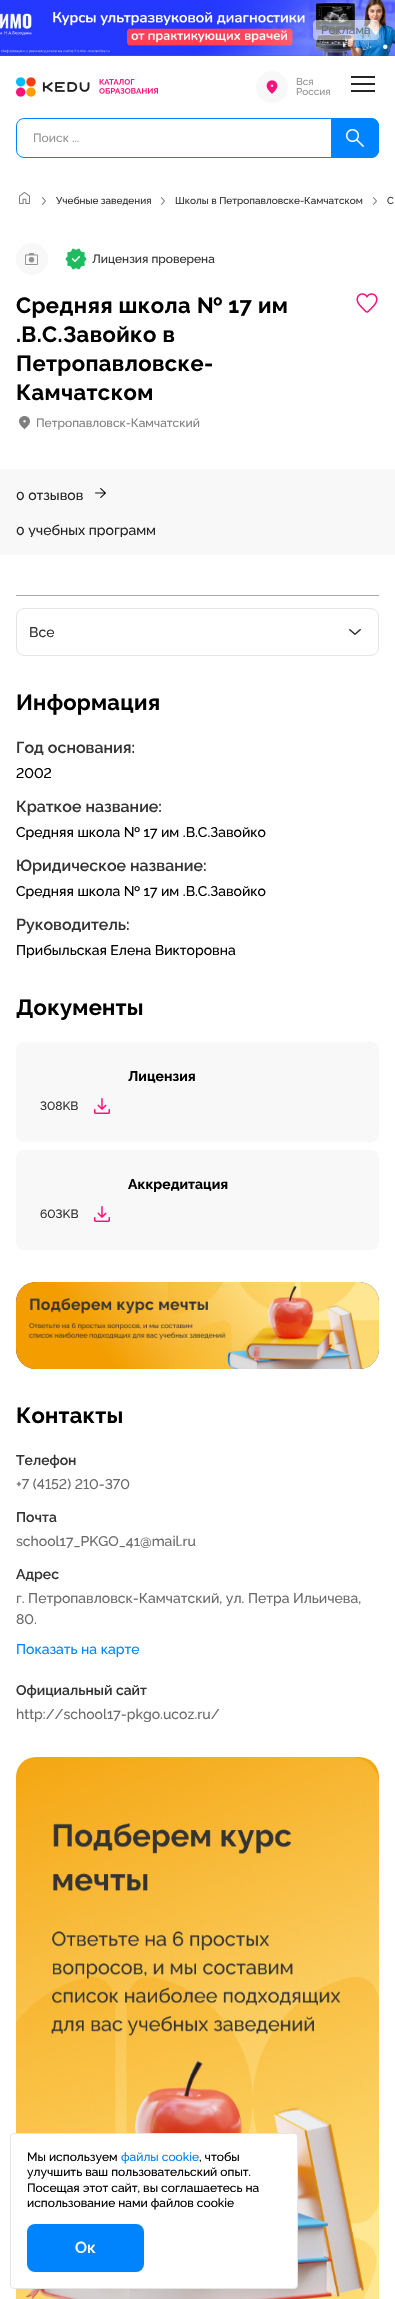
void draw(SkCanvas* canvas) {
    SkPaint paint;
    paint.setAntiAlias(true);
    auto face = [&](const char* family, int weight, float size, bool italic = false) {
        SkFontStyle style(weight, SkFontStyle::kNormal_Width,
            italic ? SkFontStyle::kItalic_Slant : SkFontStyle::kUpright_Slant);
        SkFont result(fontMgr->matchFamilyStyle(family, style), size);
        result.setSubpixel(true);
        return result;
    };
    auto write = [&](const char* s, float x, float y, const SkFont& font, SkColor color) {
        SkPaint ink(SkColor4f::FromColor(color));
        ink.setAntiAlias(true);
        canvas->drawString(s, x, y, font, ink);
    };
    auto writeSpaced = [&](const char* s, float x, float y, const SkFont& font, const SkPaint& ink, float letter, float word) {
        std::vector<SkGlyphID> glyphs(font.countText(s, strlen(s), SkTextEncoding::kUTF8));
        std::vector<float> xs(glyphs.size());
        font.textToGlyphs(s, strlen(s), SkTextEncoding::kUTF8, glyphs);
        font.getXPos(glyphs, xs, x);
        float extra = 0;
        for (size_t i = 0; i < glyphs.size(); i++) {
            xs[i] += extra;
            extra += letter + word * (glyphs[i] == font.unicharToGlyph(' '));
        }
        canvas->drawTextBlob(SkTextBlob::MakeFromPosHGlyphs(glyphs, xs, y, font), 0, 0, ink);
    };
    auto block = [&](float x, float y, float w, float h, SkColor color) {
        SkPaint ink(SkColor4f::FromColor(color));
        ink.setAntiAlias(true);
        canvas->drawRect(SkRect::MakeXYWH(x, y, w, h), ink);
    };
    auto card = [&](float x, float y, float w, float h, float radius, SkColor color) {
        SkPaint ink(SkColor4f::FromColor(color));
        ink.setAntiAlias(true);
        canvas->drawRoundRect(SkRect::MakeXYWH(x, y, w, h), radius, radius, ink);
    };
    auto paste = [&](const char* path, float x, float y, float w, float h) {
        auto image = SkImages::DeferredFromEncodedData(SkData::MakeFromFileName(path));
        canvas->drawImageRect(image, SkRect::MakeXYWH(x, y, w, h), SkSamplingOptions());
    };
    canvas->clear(SK_ColorWHITE);
    paste("pic1.png", 0, 0, 395, 56);
    card(313, 20, 66, 20, 4, SkColorSetARGB(128, 255, 255, 255));
    auto kFont1 = face("Raleway", 500, 12);
    write("Реклама", 321, 34, kFont1, SkColorSetRGB(106, 112, 125));
    paste("pic2.png", 16, 77, 142, 20);
    paint.setColor(SkColorSetRGB(248, 248, 248));
    canvas->drawCircle(272, 87, 16, paint);
    paste("pic3.png", 266, 80, 12, 14);
    auto kFont2 = face("Raleway", 500, 10);
    write("Вся", 296, 85, kFont2, SkColorSetRGB(148, 148, 148));
    write("Россия", 296, 95, kFont2, SkColorSetRGB(148, 148, 148));
    block(351, 83, 24, 2, SkColorSetRGB(36, 36, 36));
    block(351, 76, 24, 2, SkColorSetRGB(36, 36, 36));
    block(351, 90, 24, 2, SkColorSetRGB(36, 36, 36));
    paint.setStyle(SkPaint::kStroke_Style);
    paint.setStrokeWidth(1);
    paint.setColor(SkColorSetRGB(0, 132, 253));
    canvas->drawRoundRect(SkRect::MakeXYWH(16.5f, 118.5f, 362, 39), 7.5f, 7.5f, paint);
    write("Поиск ...", 33, 142, kFont1, SkColorSetRGB(148, 148, 148));
    paint.setStyle(SkPaint::kFill_Style);
    canvas->drawPath(SkPathBuilder().moveTo(331, 118).lineTo(371, 118).cubicTo(375.5f, 118, 379, 121.5f, 379, 126).lineTo(379, 150).cubicTo(379, 154.5f, 375.5f, 158, 371, 158).lineTo(331, 158).close().detach(), paint);
    paste("pic4.png", 346, 129, 18, 18);
    paste("pic5.png", 19, 192, 11, 12);
    paste("pic6.png", 42, 197, 4, 8);
    write("Учебные заведения", 56, 204, kFont2, SkColorSetRGB(52, 52, 52));
    paste("pic6.png", 161, 197, 4, 8);
    write("Школы в Петропавловске-Камчатском", 175, 204, kFont2, SkColorSetRGB(52, 52, 52));
    paste("pic6.png", 373, 197, 4, 8);
    write("С", 387, 204, kFont2, SkColorSetRGB(52, 52, 52));
    paint.setColor(SkColorSetRGB(248, 248, 248));
    canvas->drawCircle(32, 259, 16, paint);
    paste("pic7.png", 25, 253, 13, 12);
    paste("pic8.png", 65, 248, 22, 22);
    write("Лицензия проверена", 92, 263, kFont1, SkColorSetRGB(52, 52, 52));
    auto kFont3 = face("Raleway", 700, 22);
    paint.setColor(SK_ColorBLACK);
    writeSpaced("Средняя школа № 17 им", 16, 313, kFont3, paint, 0.4f, 0);
    writeSpaced(".В.С.Завойко в", 16, 342, kFont3, paint, 0.4f, 0);
    writeSpaced("Петропавловске-", 16, 371, kFont3, paint, 0.4f, 0);
    writeSpaced("Камчатском", 16, 400, kFont3, paint, 0.4f, 0);
    paste("pic9.png", 356, 293, 22, 20);
    paste("pic10.png", 19, 416, 11, 13);
    write("Петропавловск-Камчатский", 36, 427, kFont1, SkColorSetRGB(127, 127, 127));
    block(0, 469, 395, 86, SkColorSetRGB(248, 248, 248));
    auto kFont4 = face("Raleway", 500, 14);
    write("0 отзывов", 16, 500, kFont4, SkColorSetRGB(36, 36, 36));
    paste("pic11.png", 95, 488, 11, 10);
    canvas->save();
    canvas->clipRect(SkRect::MakeXYWH(16, 523, 141, 14));
    write("0 учебных программ", 16, 535, kFont4, SkColorSetRGB(36, 36, 36));
    canvas->restore();
    block(16, 595, 363, 1, SkColorSetRGB(168, 168, 168));
    paint.setStyle(SkPaint::kStroke_Style);
    paint.setColor(SkColorSetRGB(229, 229, 229));
    canvas->drawRoundRect(SkRect::MakeXYWH(16.5f, 608.5f, 362, 47), 7.5f, 7.5f, paint);
    write("Все", 29, 637, kFont4, SkColorSetRGB(52, 52, 52));
    paste("pic12.png", 349, 629, 12, 6);
    paint.setStyle(SkPaint::kFill_Style);
    paint.setColor(SK_ColorBLACK);
    writeSpaced("Информация", 16, 710, kFont3, paint, 0.25f, 0);
    auto kFont5 = face("Raleway", 600, 16);
    write("Год основания:", 16, 753, kFont5, SkColorSetRGB(52, 52, 52));
    auto kFont6 = face("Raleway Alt", 500, 14);
    write("2002", 16, 778, kFont6, SK_ColorBLACK);
    write("Краткое название:", 16, 812, kFont5, SkColorSetRGB(52, 52, 52));
    write("Средняя школа № 17 им .В.С.Завойко", 16, 837, kFont4, SK_ColorBLACK);
    write("Юридическое название:", 16, 871, kFont5, SkColorSetRGB(52, 52, 52));
    write("Средняя школа № 17 им .В.С.Завойко", 16, 896, kFont4, SK_ColorBLACK);
    write("Руководитель:", 16, 930, kFont5, SkColorSetRGB(52, 52, 52));
    write("Прибыльская Елена Викторовна", 16, 955, kFont4, SK_ColorBLACK);
    writeSpaced("Документы", 16, 1015, kFont3, paint, 0.25f, 0);
    card(16, 1042, 363, 100, 8, SkColorSetRGB(248, 248, 248));
    auto kFont7 = face("Raleway", 700, 14);
    write("Лицензия", 128, 1081, kFont7, SK_ColorBLACK);
    auto kFont8 = face("Raleway Alt", 500, 12);
    write("308KB", 40, 1110, kFont8, SkColorSetRGB(52, 52, 52));
    paste("pic13.png", 94, 1098, 16, 16);
    card(16, 1150, 363, 100, 8, SkColorSetRGB(248, 248, 248));
    write("Аккредитация", 128, 1189, kFont7, SK_ColorBLACK);
    write("603KB", 40, 1218, kFont8, SkColorSetRGB(52, 52, 52));
    paste("pic13.png", 94, 1206, 16, 16);
    card(16, 1282, 363, 87, 20, SkColorSetRGB(68, 71, 119));
    paste("pic14.png", 16, 1282, 363, 87);
    writeSpaced("Контакты", 16, 1423, kFont3, paint, 0.25f, 0);
    auto kFont9 = face("Raleway", 600, 14);
    write("Телефон", 16, 1465, kFont9, SkColorSetRGB(52, 52, 52));
    write("+7 (4152) 210-370", 16, 1489, kFont6, SkColorSetRGB(107, 107, 107));
    write("Почта", 16, 1522, kFont9, SkColorSetRGB(52, 52, 52));
    write("school17_PKGO_41@mail.ru", 16, 1546, kFont4, SkColorSetRGB(107, 107, 107));
    write("Адрес", 16, 1579, kFont9, SkColorSetRGB(52, 52, 52));
    write("г. Петропавловск-Камчатский, ул. Петра Ильичева,", 16, 1603, kFont4, SkColorSetRGB(107, 107, 107));
    write("80.", 16, 1624, kFont6, SkColorSetRGB(107, 107, 107));
    write("Показать на карте", 16, 1654, kFont4, SkColorSetRGB(0, 132, 253));
    write("Официальный сайт", 16, 1695, kFont9, SkColorSetRGB(52, 52, 52));
    write("http://school17-pkgo.ucoz.ru/", 16, 1719, kFont4, SkColorSetRGB(107, 107, 107));
    card(16, 1757, 363, 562, 20, SkColorSetRGB(244, 168, 21));
    paste("pic15.png", 16, 1757, 363, 542);
    paint.setColor(SK_ColorWHITE);
    canvas->drawRoundRect(SkRect::MakeXYWH(10.5f, 2133.5f, 287, 155), 3.5f, 3.5f, paint);
    paint.setStyle(SkPaint::kStroke_Style);
    paint.setColor(SkColorSetRGB(229, 229, 229));
    canvas->drawRoundRect(SkRect::MakeXYWH(10.5f, 2133.5f, 287, 155), 3.5f, 3.5f, paint);
    write("Мы используем", 27, 2161, kFont1, SK_ColorBLACK);
    write("файлы cookie", 121, 2161, kFont1, SkColorSetRGB(0, 132, 253));
    write(", чтобы", 199, 2161, kFont1, SK_ColorBLACK);
    write("улучшить ваш пользовательский опыт.", 27, 2176, kFont1, SK_ColorBLACK);
    write("Посещая этот сайт, вы соглашаетесь на", 27, 2192, kFont1, SK_ColorBLACK);
    write("использование нами файлов cookie", 27, 2207, kFont1, SK_ColorBLACK);
    card(27, 2224, 117, 48, 8, SkColorSetRGB(0, 132, 253));
    write("Ок", 75, 2253, kFont5, SK_ColorWHITE);
}
